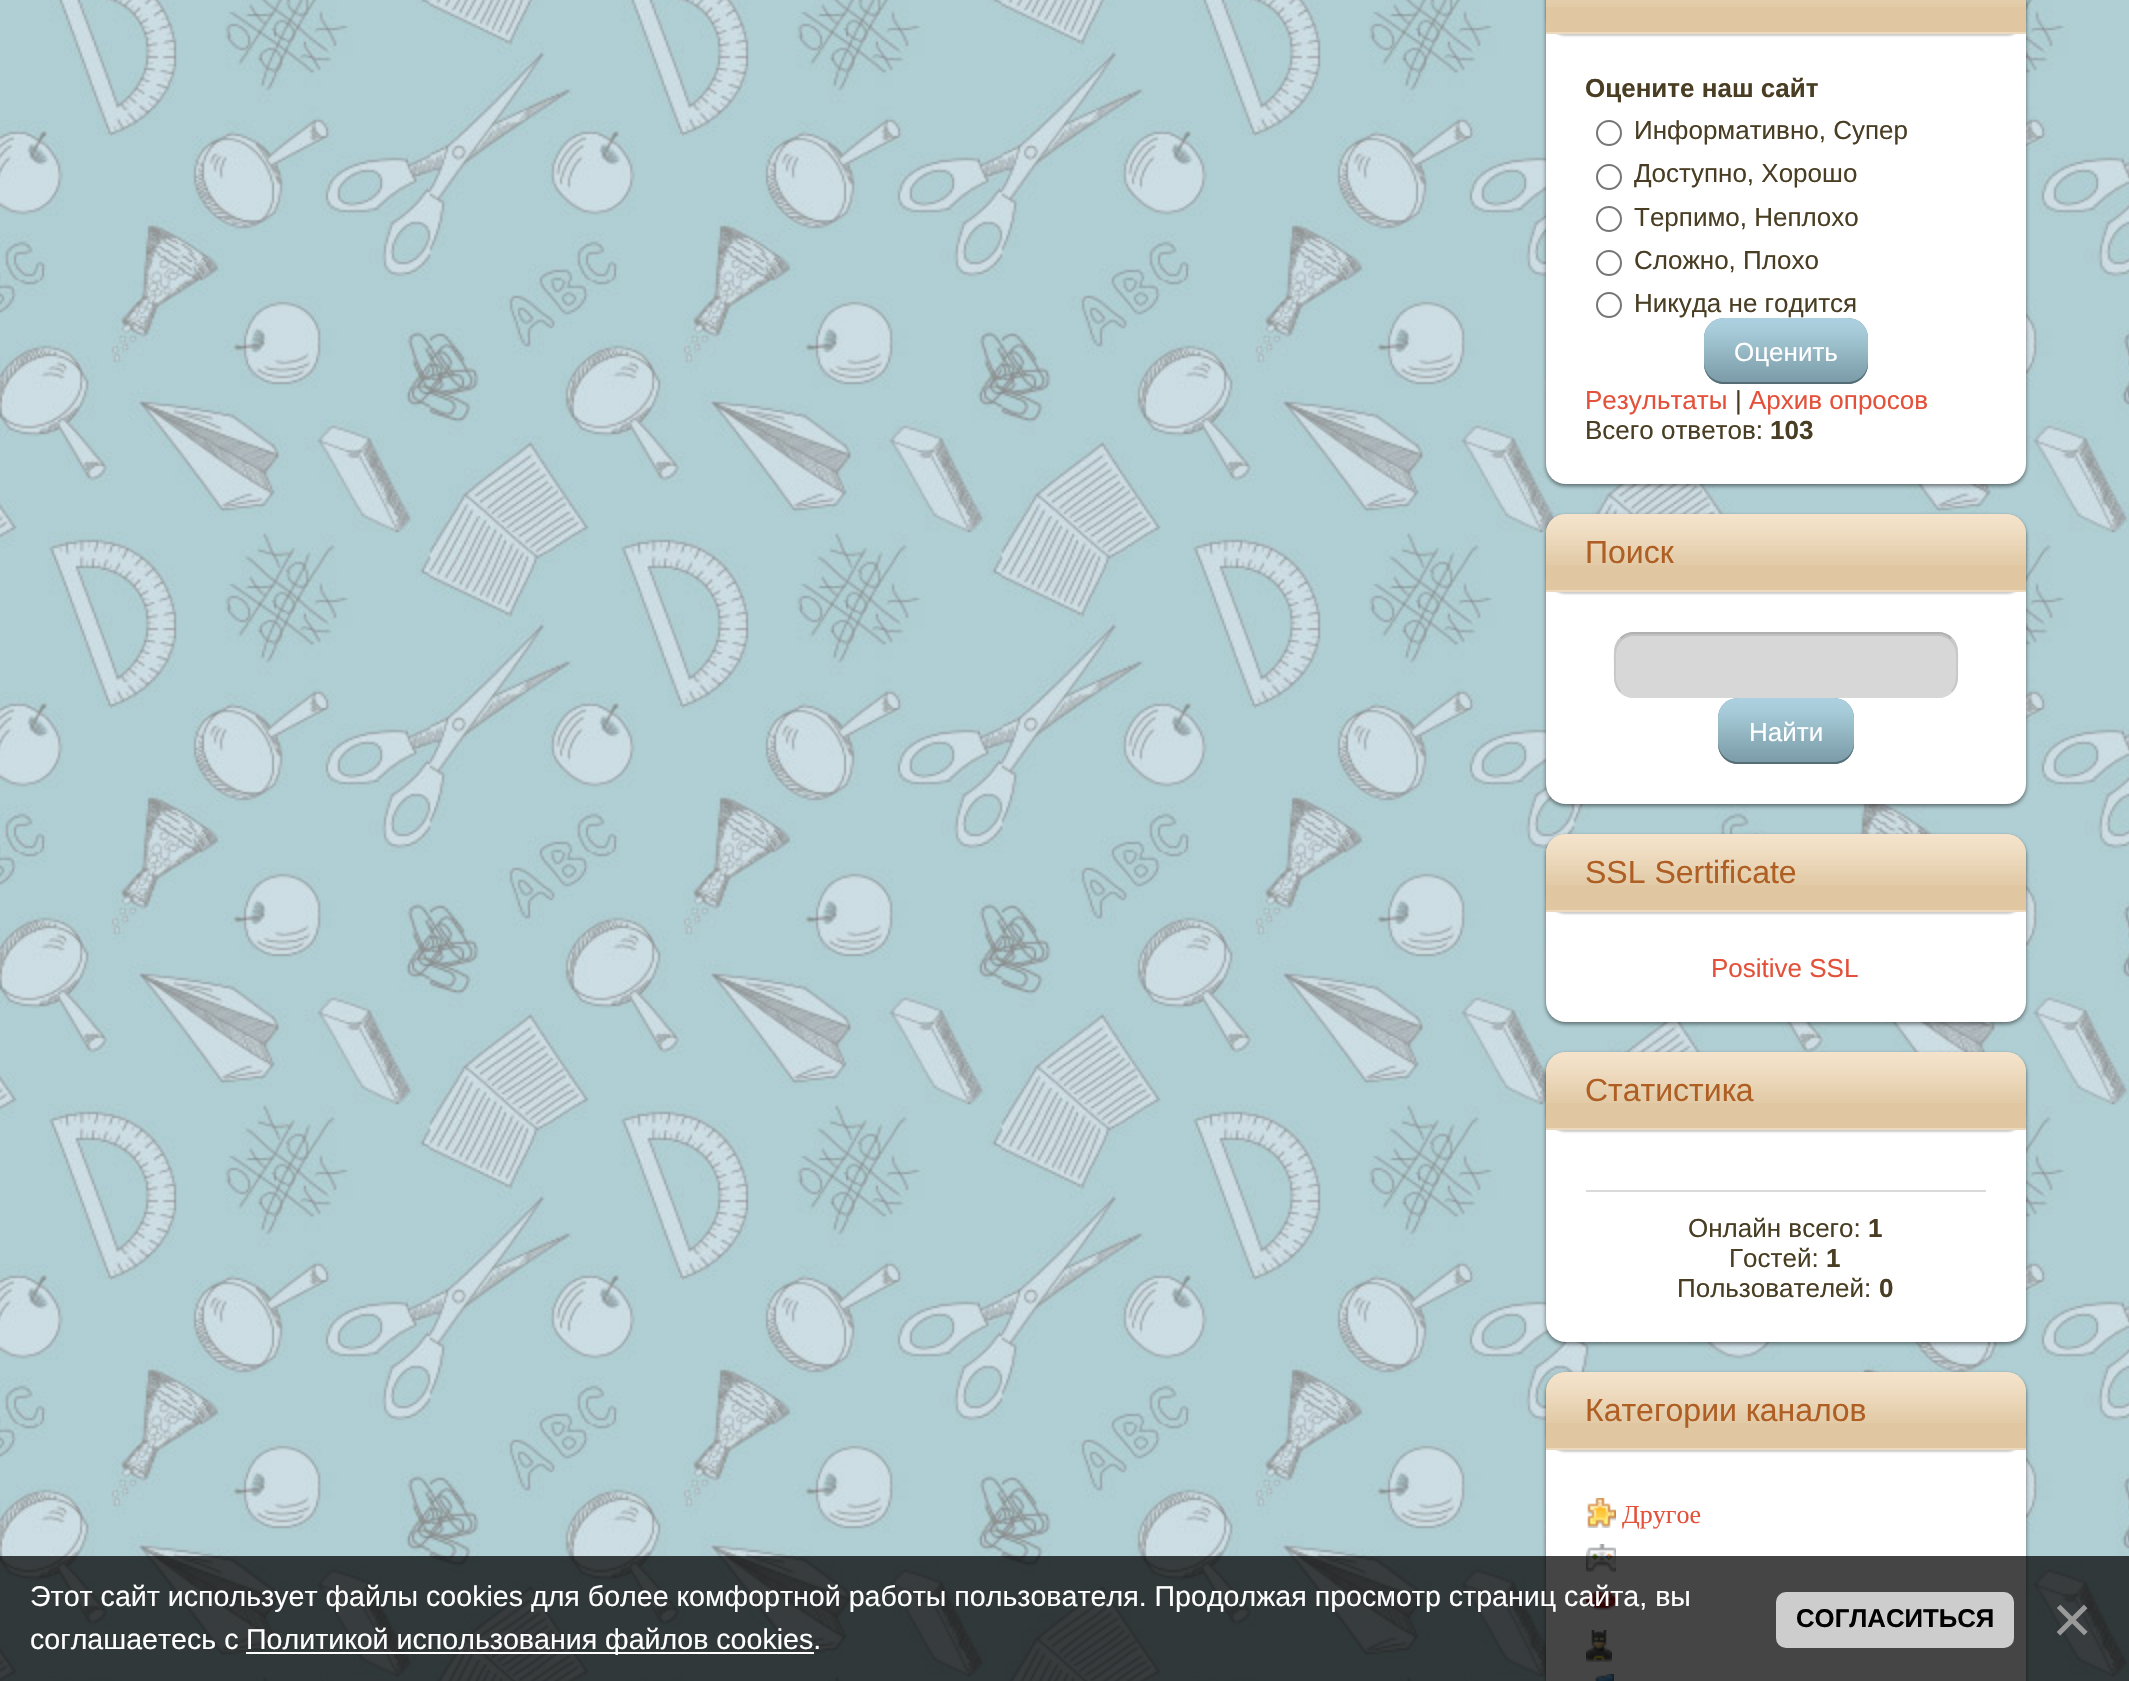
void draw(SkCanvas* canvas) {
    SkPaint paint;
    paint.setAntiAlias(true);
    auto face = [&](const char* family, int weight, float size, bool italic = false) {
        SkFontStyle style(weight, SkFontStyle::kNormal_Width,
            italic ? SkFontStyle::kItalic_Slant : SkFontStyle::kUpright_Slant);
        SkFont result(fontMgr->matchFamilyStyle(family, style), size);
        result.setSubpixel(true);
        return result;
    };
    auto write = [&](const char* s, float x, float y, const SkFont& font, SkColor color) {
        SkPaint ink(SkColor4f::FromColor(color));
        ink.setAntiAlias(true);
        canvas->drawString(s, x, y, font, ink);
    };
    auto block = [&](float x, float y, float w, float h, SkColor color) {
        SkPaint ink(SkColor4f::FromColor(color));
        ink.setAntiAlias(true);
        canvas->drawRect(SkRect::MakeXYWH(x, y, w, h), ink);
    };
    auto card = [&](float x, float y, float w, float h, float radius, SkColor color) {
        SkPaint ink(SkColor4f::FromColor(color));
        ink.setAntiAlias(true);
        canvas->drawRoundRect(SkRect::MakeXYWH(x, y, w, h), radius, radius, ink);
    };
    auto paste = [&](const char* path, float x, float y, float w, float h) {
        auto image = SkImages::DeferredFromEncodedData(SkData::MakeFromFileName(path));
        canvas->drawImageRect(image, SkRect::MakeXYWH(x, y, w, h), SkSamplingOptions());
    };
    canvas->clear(SK_ColorWHITE);
    paste("pic1.png", 0, 0, 2129, 1681);
    paint.setColor(SkColorSetARGB(128, 0, 0, 0));
    paint.setMaskFilter(SkMaskFilter::MakeBlur(kNormal_SkBlurStyle, 2));
    canvas->drawRoundRect(SkRect::MakeXYWH(1546, -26, 480, 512), 20, 20, paint);
    paint.setMaskFilter(nullptr);
    card(1546, -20, 480, 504, 20, SK_ColorWHITE);
    paint.setColor(SkColorSetARGB(51, 0, 0, 0));
    paint.setMaskFilter(SkMaskFilter::MakeBlur(kNormal_SkBlurStyle, 1));
    canvas->drawRoundRect(SkRect::MakeXYWH(1546, -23, 480, 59), 20, 20, paint);
    paint.setMaskFilter(nullptr);
    block(1546, 7, 480, 25, SkColorSetRGB(224, 199, 162));
    paste("pic2.png", 1546, 0, 480, 7);
    block(1546, 32, 480, 2, SkColorSetRGB(237, 218, 190));
    auto kFont1 = face("Liberation Sans", 700, 26);
    write("Оцените наш сайт", 1585, 97, kFont1, SkColorSetRGB(73, 62, 36));
    paint.setStyle(SkPaint::kStroke_Style);
    paint.setStrokeWidth(2);
    paint.setColor(SkColorSetRGB(118, 118, 118));
    canvas->drawCircle(1609, 133, 12, paint);
    auto kFont2 = face("Liberation Sans", 400, 26);
    write("Информативно, Супер", 1634, 139, kFont2, SkColorSetRGB(73, 62, 36));
    canvas->drawCircle(1609, 177, 12, paint);
    write("Доступно, Хорошо", 1634, 182, kFont2, SkColorSetRGB(73, 62, 36));
    canvas->drawCircle(1609, 219, 12, paint);
    write("Терпимо, Неплохо", 1634, 226, kFont2, SkColorSetRGB(73, 62, 36));
    canvas->drawCircle(1609, 263, 12, paint);
    write("Сложно, Плохо", 1634, 269, kFont2, SkColorSetRGB(73, 62, 36));
    canvas->drawCircle(1609, 305, 12, paint);
    write("Никуда не годится", 1634, 312, kFont2, SkColorSetRGB(73, 62, 36));
    card(1704, 318, 164, 66, 20, SkColorSetRGB(115, 148, 160));
    paste("pic3.png", 1704, 318, 164, 66);
    paint.setStyle(SkPaint::kFill_Style);
    paint.setColor(SkColorSetARGB(77, 0, 0, 0));
    canvas->drawPath(SkPathBuilder().moveTo(1704, 362).lineTo(1704, 364).cubicTo(1704, 375, 1713, 384, 1724, 384).lineTo(1848, 384).cubicTo(1859, 384, 1868, 375, 1868, 364).lineTo(1868, 362).cubicTo(1868, 373, 1859, 382, 1848, 382).lineTo(1724, 382).cubicTo(1713, 382, 1704, 373, 1704, 362).close().detach(), paint);
    write("Оценить", 1734, 361, kFont2, SK_ColorWHITE);
    write("Результаты", 1585, 409, kFont2, SkColorSetRGB(228, 81, 58));
    write("|", 1735, 409, kFont2, SkColorSetRGB(73, 62, 36));
    write("Архив опросов", 1749, 409, kFont2, SkColorSetRGB(228, 81, 58));
    write("Всего ответов:", 1585, 439, kFont2, SkColorSetRGB(73, 62, 36));
    write("103", 1770, 439, kFont1, SkColorSetRGB(73, 62, 36));
    paint.setColor(SkColorSetARGB(128, 0, 0, 0));
    paint.setMaskFilter(SkMaskFilter::MakeBlur(kNormal_SkBlurStyle, 2));
    canvas->drawRoundRect(SkRect::MakeXYWH(1546, 516, 480, 290), 20, 20, paint);
    paint.setMaskFilter(nullptr);
    card(1546, 514, 480, 290, 20, SK_ColorWHITE);
    paint.setColor(SkColorSetARGB(51, 0, 0, 0));
    paint.setMaskFilter(SkMaskFilter::MakeBlur(kNormal_SkBlurStyle, 1));
    canvas->drawRoundRect(SkRect::MakeXYWH(1546, 516, 480, 78), 20, 20, paint);
    paint.setMaskFilter(nullptr);
    paint.setColor(SkColorSetRGB(224, 199, 162));
    canvas->drawPath(SkPathBuilder().moveTo(1566, 514).lineTo(2006, 514).cubicTo(2017, 514, 2026, 523, 2026, 534).lineTo(2026, 592).lineTo(1546, 592).lineTo(1546, 534).cubicTo(1546, 523, 1555, 514, 1566, 514).close().detach(), paint);
    paste("pic4.png", 1546, 514, 480, 51);
    block(1546, 590, 480, 2, SkColorSetRGB(237, 218, 190));
    auto kFont3 = face("Liberation Sans", 400, 32);
    write("Поиск", 1585, 563, kFont3, SkColorSetRGB(175, 95, 36));
    card(1614, 632, 344, 66, 20, SkColorSetRGB(215, 215, 215));
    paint.setColor(SkColorSetRGB(194, 194, 194));
    canvas->drawPath(SkPathBuilder().moveTo(1634, 636).lineTo(1938, 636).cubicTo(1948, 636, 1956, 644, 1956, 654).lineTo(1956, 652).cubicTo(1956, 642, 1948, 634, 1938, 634).lineTo(1634, 634).cubicTo(1624, 634, 1616, 642, 1616, 652).lineTo(1616, 654).cubicTo(1616, 644, 1624, 636, 1634, 636).close().detach(), paint);
    paint.setStyle(SkPaint::kStroke_Style);
    paint.setColor(SkColorSetRGB(176, 176, 176));
    canvas->drawPath(SkPathBuilder().moveTo(1620.5f, 638.5f).cubicTo(1624, 635, 1629, 633, 1634, 633).lineTo(1938, 633).cubicTo(1943, 633, 1948, 635, 1951.5f, 638.5f).detach(), paint);
    paint.setColor(SkColorSetRGB(200, 200, 200));
    canvas->drawPath(SkPathBuilder().moveTo(1951.5f, 638.5f).cubicTo(1958.5f, 645.5f, 1957, 656, 1957, 665).cubicTo(1957, 674, 1958.5f, 684.5f, 1951.5f, 691.5f).detach(), paint);
    paint.setColor(SkColorSetRGB(215, 215, 215));
    canvas->drawPath(SkPathBuilder().moveTo(1951.5f, 691.5f).cubicTo(1948, 695, 1943, 697, 1938, 697).lineTo(1634, 697).cubicTo(1629, 697, 1624, 695, 1620.5f, 691.5f).detach(), paint);
    paint.setColor(SkColorSetRGB(200, 200, 200));
    canvas->drawPath(SkPathBuilder().moveTo(1620.5f, 691.5f).cubicTo(1613.5f, 684.5f, 1615, 674, 1615, 665).cubicTo(1615, 656, 1613.5f, 645.5f, 1620.5f, 638.5f).detach(), paint);
    card(1718, 698, 136, 66, 20, SkColorSetRGB(115, 148, 160));
    paste("pic5.png", 1718, 698, 136, 66);
    paint.setStyle(SkPaint::kFill_Style);
    paint.setColor(SkColorSetARGB(77, 0, 0, 0));
    canvas->drawPath(SkPathBuilder().moveTo(1718, 742).lineTo(1718, 744).cubicTo(1718, 755, 1727, 764, 1738, 764).lineTo(1834, 764).cubicTo(1845, 764, 1854, 755, 1854, 744).lineTo(1854, 742).cubicTo(1854, 753, 1845, 762, 1834, 762).lineTo(1738, 762).cubicTo(1727, 762, 1718, 753, 1718, 742).close().detach(), paint);
    write("Найти", 1749, 741, kFont2, SK_ColorWHITE);
    paint.setColor(SkColorSetARGB(128, 0, 0, 0));
    paint.setMaskFilter(SkMaskFilter::MakeBlur(kNormal_SkBlurStyle, 2));
    canvas->drawRoundRect(SkRect::MakeXYWH(1546, 836, 480, 188), 20, 20, paint);
    paint.setMaskFilter(nullptr);
    card(1546, 834, 480, 188, 20, SK_ColorWHITE);
    paint.setColor(SkColorSetARGB(51, 0, 0, 0));
    paint.setMaskFilter(SkMaskFilter::MakeBlur(kNormal_SkBlurStyle, 1));
    canvas->drawRoundRect(SkRect::MakeXYWH(1546, 836, 480, 78), 20, 20, paint);
    paint.setMaskFilter(nullptr);
    paint.setColor(SkColorSetRGB(224, 199, 162));
    canvas->drawPath(SkPathBuilder().moveTo(1566, 834).lineTo(2006, 834).cubicTo(2017, 834, 2026, 843, 2026, 854).lineTo(2026, 912).lineTo(1546, 912).lineTo(1546, 854).cubicTo(1546, 843, 1555, 834, 1566, 834).close().detach(), paint);
    paste("pic6.png", 1546, 834, 480, 51);
    block(1546, 910, 480, 2, SkColorSetRGB(237, 218, 190));
    write("SSL Sertificate", 1585, 883, kFont3, SkColorSetRGB(175, 95, 36));
    write("Positive SSL", 1711, 977, kFont2, SkColorSetRGB(228, 81, 58));
    paint.setColor(SkColorSetARGB(128, 0, 0, 0));
    paint.setMaskFilter(SkMaskFilter::MakeBlur(kNormal_SkBlurStyle, 2));
    canvas->drawRoundRect(SkRect::MakeXYWH(1546, 1054, 480, 290), 20, 20, paint);
    paint.setMaskFilter(nullptr);
    card(1546, 1052, 480, 290, 20, SK_ColorWHITE);
    paint.setColor(SkColorSetARGB(51, 0, 0, 0));
    paint.setMaskFilter(SkMaskFilter::MakeBlur(kNormal_SkBlurStyle, 1));
    canvas->drawRoundRect(SkRect::MakeXYWH(1546, 1054, 480, 78), 20, 20, paint);
    paint.setMaskFilter(nullptr);
    paint.setColor(SkColorSetRGB(224, 199, 162));
    canvas->drawPath(SkPathBuilder().moveTo(1566, 1052).lineTo(2006, 1052).cubicTo(2017, 1052, 2026, 1061, 2026, 1072).lineTo(2026, 1130).lineTo(1546, 1130).lineTo(1546, 1072).cubicTo(1546, 1061, 1555, 1052, 1566, 1052).close().detach(), paint);
    paste("pic7.png", 1546, 1052, 480, 51);
    block(1546, 1128, 480, 2, SkColorSetRGB(237, 218, 190));
    write("Статистика", 1585, 1101, kFont3, SkColorSetRGB(175, 95, 36));
    block(1586, 1190, 400, 2, SkColorSetRGB(218, 218, 218));
    write("Онлайн всего:", 1688, 1237, kFont2, SkColorSetRGB(73, 62, 36));
    write("1", 1868, 1237, kFont1, SkColorSetRGB(73, 62, 36));
    write("Гостей:", 1729, 1267, kFont2, SkColorSetRGB(73, 62, 36));
    write("1", 1826, 1267, kFont1, SkColorSetRGB(73, 62, 36));
    write("Пользователей:", 1677, 1297, kFont2, SkColorSetRGB(73, 62, 36));
    write("0", 1879, 1297, kFont1, SkColorSetRGB(73, 62, 36));
    paint.setColor(SkColorSetARGB(128, 0, 0, 0));
    paint.setMaskFilter(SkMaskFilter::MakeBlur(kNormal_SkBlurStyle, 2));
    canvas->drawRoundRect(SkRect::MakeXYWH(1546, 1374, 480, 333), 20, 20, paint);
    paint.setMaskFilter(nullptr);
    card(1546, 1372, 480, 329, 20, SK_ColorWHITE);
    paint.setColor(SkColorSetARGB(51, 0, 0, 0));
    paint.setMaskFilter(SkMaskFilter::MakeBlur(kNormal_SkBlurStyle, 1));
    canvas->drawRoundRect(SkRect::MakeXYWH(1546, 1374, 480, 78), 20, 20, paint);
    paint.setMaskFilter(nullptr);
    paint.setColor(SkColorSetRGB(224, 199, 162));
    canvas->drawPath(SkPathBuilder().moveTo(1566, 1372).lineTo(2006, 1372).cubicTo(2017, 1372, 2026, 1381, 2026, 1392).lineTo(2026, 1450).lineTo(1546, 1450).lineTo(1546, 1392).cubicTo(1546, 1381, 1555, 1372, 1566, 1372).close().detach(), paint);
    paste("pic8.png", 1546, 1372, 480, 51);
    block(1546, 1448, 480, 2, SkColorSetRGB(237, 218, 190));
    write("Категории каналов", 1585, 1421, kFont3, SkColorSetRGB(175, 95, 36));
    paste("pic9.png", 1587, 1498, 29, 30);
    auto kFont4 = face("Liberation Serif", 400, 26);
    write("Другое", 1622, 1523, kFont4, SkColorSetRGB(228, 81, 58));
    paste("pic10.png", 1586, 1544, 30, 28);
    paste("pic11.png", 1586, 1592, 30, 18);
    paste("pic12.png", 1586, 1630, 26, 32);
    paste("pic13.png", 1595, 1674, 19, 7);
    block(0, 1556, 2129, 125, SkColorSetARGB(186, 0, 0, 0));
    auto kFont5 = face("Liberation Sans", 400, 28.6f);
    write("Этот сайт использует файлы cookies для более комфортной работы пользователя. Продолжая просмотр страниц сайта, вы", 30, 1606, kFont5, SK_ColorWHITE);
    write("соглашаетесь с", 30, 1649, kFont5, SK_ColorWHITE);
    block(246, 1652, 568, 2, SK_ColorWHITE);
    write("Политикой использования файлов cookies.", 246, 1649, kFont5, SK_ColorWHITE);
    card(1776, 1592, 238, 56, 10, SkColorSetARGB(186, 255, 255, 255));
    auto kFont6 = face("Liberation Sans", 700, 25.75f);
    write("СОГЛАСИТЬСЯ", 1796, 1627, kFont6, SK_ColorBLACK);
    auto kFont7 = face("Liberation Sans", 400, 69);
    write("×", 2052, 1643, kFont7, SkColorSetRGB(153, 153, 153));
}
